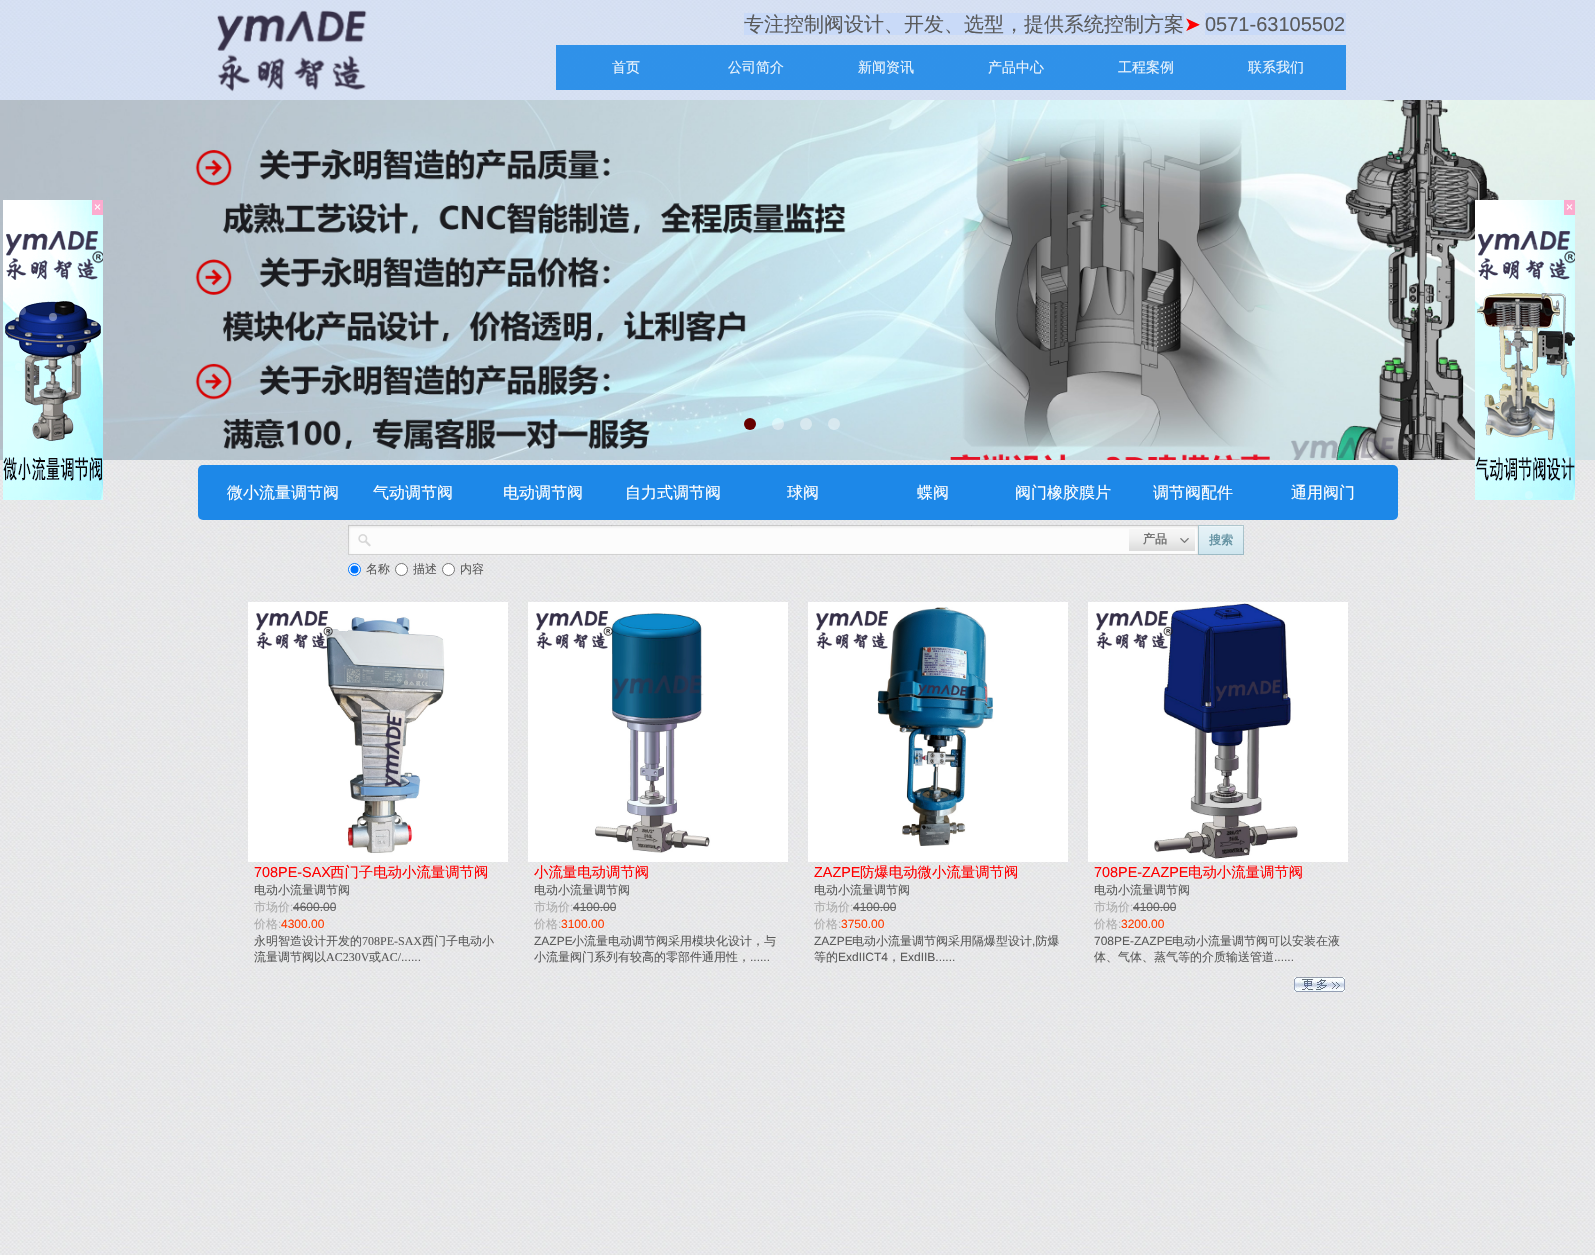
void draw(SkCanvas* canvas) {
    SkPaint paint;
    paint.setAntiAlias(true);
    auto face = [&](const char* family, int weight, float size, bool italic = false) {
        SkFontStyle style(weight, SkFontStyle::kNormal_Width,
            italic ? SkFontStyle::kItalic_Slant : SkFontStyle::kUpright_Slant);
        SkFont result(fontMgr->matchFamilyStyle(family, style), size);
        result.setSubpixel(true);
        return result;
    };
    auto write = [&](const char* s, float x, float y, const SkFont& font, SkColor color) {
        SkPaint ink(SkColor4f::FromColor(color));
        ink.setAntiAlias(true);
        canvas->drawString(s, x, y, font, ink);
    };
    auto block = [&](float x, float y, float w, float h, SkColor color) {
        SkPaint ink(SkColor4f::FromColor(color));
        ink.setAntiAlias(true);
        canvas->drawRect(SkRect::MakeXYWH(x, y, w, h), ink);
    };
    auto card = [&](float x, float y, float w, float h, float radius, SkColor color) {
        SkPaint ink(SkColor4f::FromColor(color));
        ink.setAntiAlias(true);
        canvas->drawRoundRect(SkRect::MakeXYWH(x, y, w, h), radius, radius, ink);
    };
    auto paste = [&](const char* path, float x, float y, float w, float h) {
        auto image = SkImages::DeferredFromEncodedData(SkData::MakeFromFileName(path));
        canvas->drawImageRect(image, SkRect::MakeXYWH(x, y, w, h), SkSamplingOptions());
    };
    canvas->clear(SK_ColorWHITE);
    paste("pic3.png", 0, 0, 1595, 1255);
    paste("pic5.png", 0, 100, 1595, 360);
    paste("pic1.png", 3, 200, 100, 300);
    block(92, 200, 11, 15, SkColorSetRGB(252, 171, 207));
    auto kFont1 = face("Liberation Sans", 400, 12);
    write("×", 94, 211, kFont1, SK_ColorWHITE);
    paste("pic2.png", 15, 307, 68, 104);
    block(0, 0, 1595, 100, SkColorSetARGB(153, 201, 218, 248));
    paste("pic4.png", 217, 10, 150, 82);
    block(744, 13, 440, 22, SkColorSetRGB(201, 218, 248));
    auto kFont2 = face("WenQuanYi Zen Hei", 500, 20);
    write("专注控制阀设计、开发、选型，提供系统控制方案", 744, 31, kFont2, SkColorSetRGB(90, 90, 90));
    auto kFont3 = face("DejaVu Sans", 400, 20);
    write("➤", 1184, 31, kFont3, SkColorSetRGB(255, 0, 0));
    block(1205, 13, 141, 22, SkColorSetRGB(201, 218, 248));
    auto kFont4 = face("Liberation Sans", 400, 20);
    write("0571-63105502", 1205, 31, kFont4, SkColorSetRGB(90, 90, 90));
    block(556, 45, 790, 45, SkColorSetARGB(230, 29, 136, 232));
    auto kFont5 = face("WenQuanYi Zen Hei", 500, 14);
    write("首页", 612, 72, kFont5, SkColorSetRGB(234, 244, 253));
    write("公司简介", 728, 72, kFont5, SkColorSetRGB(234, 244, 253));
    write("新闻资讯", 858, 72, kFont5, SkColorSetRGB(234, 244, 253));
    write("产品中心", 988, 72, kFont5, SkColorSetRGB(234, 244, 253));
    write("工程案例", 1118, 72, kFont5, SkColorSetRGB(234, 244, 253));
    write("联系我们", 1248, 72, kFont5, SkColorSetRGB(234, 244, 253));
    paint.setColor(SkColorSetRGB(102, 0, 0));
    canvas->drawCircle(750, 424, 6, paint);
    paint.setColor(SkColorSetARGB(102, 255, 255, 255));
    canvas->drawCircle(778, 424, 6, paint);
    canvas->drawCircle(806, 424, 6, paint);
    canvas->drawCircle(834, 424, 6, paint);
    card(198, 465, 1200, 55, 5, SkColorSetRGB(29, 136, 232));
    auto kFont6 = face("WenQuanYi Zen Hei", 500, 16);
    write("微小流量调节阀", 227, 498, kFont6, SK_ColorWHITE);
    write("气动调节阀", 373, 498, kFont6, SK_ColorWHITE);
    write("电动调节阀", 503, 498, kFont6, SK_ColorWHITE);
    write("自力式调节阀", 625, 498, kFont6, SK_ColorWHITE);
    write("球阀", 787, 498, kFont6, SK_ColorWHITE);
    write("蝶阀", 917, 498, kFont6, SK_ColorWHITE);
    write("阀门橡胶膜片", 1015, 498, kFont6, SK_ColorWHITE);
    write("调节阀配件", 1153, 498, kFont6, SK_ColorWHITE);
    write("通用阀门", 1291, 498, kFont6, SK_ColorWHITE);
    paste("pic6.png", 348, 525, 25, 30);
    paste("pic7.png", 373, 525, 825, 30);
    paste("pic8.png", 1129, 529, 2, 22);
    paste("pic9.png", 1131, 525, 48, 26);
    auto kFont7 = face("WenQuanYi Zen Hei", 700, 12);
    write("产品", 1143, 543, kFont7, SkColorSetRGB(116, 116, 116));
    paste("pic10.png", 1179, 526, 19, 28);
    paste("pic11.png", 1198, 525, 1, 30);
    paste("pic12.png", 1199, 525, 44, 30);
    write("搜索", 1209, 544, kFont7, SkColorSetRGB(102, 148, 164));
    paste("pic11.png", 1243, 525, 1, 30);
    paint.setColor(SK_ColorWHITE);
    canvas->drawCircle(354.5f, 569.5f, 6, paint);
    paint.setStyle(SkPaint::kStroke_Style);
    paint.setStrokeWidth(1);
    paint.setColor(SkColorSetRGB(0, 117, 255));
    canvas->drawCircle(354.5f, 569.5f, 6, paint);
    paint.setStyle(SkPaint::kFill_Style);
    canvas->drawCircle(354.5f, 569.5f, 4, paint);
    auto kFont8 = face("WenQuanYi Zen Hei", 500, 12);
    write("名称", 366, 573, kFont8, SkColorSetRGB(90, 90, 90));
    paint.setColor(SK_ColorWHITE);
    canvas->drawCircle(401.5f, 569.5f, 6, paint);
    paint.setStyle(SkPaint::kStroke_Style);
    paint.setColor(SkColorSetRGB(118, 118, 118));
    canvas->drawCircle(401.5f, 569.5f, 6, paint);
    write("描述", 413, 573, kFont8, SkColorSetRGB(90, 90, 90));
    paint.setStyle(SkPaint::kFill_Style);
    paint.setColor(SK_ColorWHITE);
    canvas->drawCircle(448.5f, 569.5f, 6, paint);
    paint.setStyle(SkPaint::kStroke_Style);
    paint.setColor(SkColorSetRGB(118, 118, 118));
    canvas->drawCircle(448.5f, 569.5f, 6, paint);
    write("内容", 460, 573, kFont8, SkColorSetRGB(90, 90, 90));
    paste("pic13.png", 248, 602, 260, 260);
    auto kFont9 = face("Liberation Sans", 400, 14.4f);
    write("708PE-SAX", 254, 877, kFont9, SkColorSetRGB(255, 0, 0));
    auto kFont10 = face("WenQuanYi Zen Hei", 500, 14.4f);
    write("西门子电动小流量调节阀", 330, 877, kFont10, SkColorSetRGB(255, 0, 0));
    write("电动小流量调节阀", 254, 894, kFont8, SkColorSetRGB(90, 90, 90));
    write("市场价", 254, 911, kFont8, SkColorSetRGB(172, 172, 172));
    write(":", 290, 911, kFont1, SkColorSetRGB(172, 172, 172));
    write("4600.00", 293, 911, kFont1, SkColorSetRGB(102, 102, 102));
    block(293, 907, 43, 1, SkColorSetRGB(102, 102, 102));
    write("价格", 254, 928, kFont8, SkColorSetRGB(172, 172, 172));
    write(":", 278, 928, kFont1, SkColorSetRGB(172, 172, 172));
    write("4300.00", 281, 928, kFont1, SkColorSetRGB(255, 60, 0));
    write("永明智造设计开发的", 254, 945, kFont8, SkColorSetRGB(90, 90, 90));
    auto kFont11 = face("Liberation Serif", 400, 12);
    write("708PE-SAX", 362, 945, kFont11, SkColorSetRGB(90, 90, 90));
    write("西门子电动小", 422, 945, kFont8, SkColorSetRGB(90, 90, 90));
    write("流量调节阀以", 254, 961, kFont8, SkColorSetRGB(90, 90, 90));
    write("AC230V", 326, 961, kFont11, SkColorSetRGB(90, 90, 90));
    write("或", 369, 961, kFont8, SkColorSetRGB(90, 90, 90));
    write("AC/", 381, 961, kFont11, SkColorSetRGB(90, 90, 90));
    write("......", 401, 961, kFont1, SkColorSetRGB(90, 90, 90));
    paste("pic14.png", 528, 602, 260, 260);
    write("小流量电动调节阀", 534, 877, kFont10, SkColorSetRGB(255, 0, 0));
    write("电动小流量调节阀", 534, 894, kFont8, SkColorSetRGB(90, 90, 90));
    write("市场价", 534, 911, kFont8, SkColorSetRGB(172, 172, 172));
    write(":", 570, 911, kFont1, SkColorSetRGB(172, 172, 172));
    write("4100.00", 573, 911, kFont1, SkColorSetRGB(102, 102, 102));
    block(573, 907, 43, 1, SkColorSetRGB(102, 102, 102));
    write("价格", 534, 928, kFont8, SkColorSetRGB(172, 172, 172));
    write(":", 558, 928, kFont1, SkColorSetRGB(172, 172, 172));
    write("3100.00", 561, 928, kFont1, SkColorSetRGB(255, 60, 0));
    write("ZAZPE", 534, 945, kFont1, SkColorSetRGB(90, 90, 90));
    write("小流量电动调节阀采用模块化设计，与", 572, 945, kFont8, SkColorSetRGB(90, 90, 90));
    write("小流量阀门系列有较高的零部件通用性，", 534, 961, kFont8, SkColorSetRGB(90, 90, 90));
    write("......", 750, 961, kFont1, SkColorSetRGB(90, 90, 90));
    paste("pic15.png", 808, 602, 260, 260);
    write("ZAZPE", 814, 877, kFont9, SkColorSetRGB(255, 0, 0));
    write("防爆电动微小流量调节阀", 860, 877, kFont10, SkColorSetRGB(255, 0, 0));
    write("电动小流量调节阀", 814, 894, kFont8, SkColorSetRGB(90, 90, 90));
    write("市场价", 814, 911, kFont8, SkColorSetRGB(172, 172, 172));
    write(":", 850, 911, kFont1, SkColorSetRGB(172, 172, 172));
    write("4100.00", 853, 911, kFont1, SkColorSetRGB(102, 102, 102));
    block(853, 907, 43, 1, SkColorSetRGB(102, 102, 102));
    write("价格", 814, 928, kFont8, SkColorSetRGB(172, 172, 172));
    write(":", 838, 928, kFont1, SkColorSetRGB(172, 172, 172));
    write("3750.00", 841, 928, kFont1, SkColorSetRGB(255, 60, 0));
    write("ZAZPE", 814, 945, kFont1, SkColorSetRGB(90, 90, 90));
    write("电动小流量调节阀采用隔爆型设计 防爆", 852, 945, kFont8, SkColorSetRGB(90, 90, 90));
    write(",", 1032, 945, kFont1, SkColorSetRGB(90, 90, 90));
    write("等的", 814, 961, kFont8, SkColorSetRGB(90, 90, 90));
    write("ExdIICT4", 838, 961, kFont1, SkColorSetRGB(90, 90, 90));
    write("，", 888, 961, kFont8, SkColorSetRGB(90, 90, 90));
    write("ExdIIB......", 900, 961, kFont1, SkColorSetRGB(90, 90, 90));
    paste("pic16.png", 1088, 602, 260, 260);
    write("708PE-ZAZPE", 1094, 877, kFont9, SkColorSetRGB(255, 0, 0));
    write("电动小流量调节阀", 1188, 877, kFont10, SkColorSetRGB(255, 0, 0));
    write("电动小流量调节阀", 1094, 894, kFont8, SkColorSetRGB(90, 90, 90));
    write("市场价", 1094, 911, kFont8, SkColorSetRGB(172, 172, 172));
    write(":", 1130, 911, kFont1, SkColorSetRGB(172, 172, 172));
    write("4100.00", 1133, 911, kFont1, SkColorSetRGB(102, 102, 102));
    block(1133, 907, 43, 1, SkColorSetRGB(102, 102, 102));
    write("价格", 1094, 928, kFont8, SkColorSetRGB(172, 172, 172));
    write(":", 1118, 928, kFont1, SkColorSetRGB(172, 172, 172));
    write("3200.00", 1121, 928, kFont1, SkColorSetRGB(255, 60, 0));
    write("708PE-ZAZPE", 1094, 945, kFont1, SkColorSetRGB(90, 90, 90));
    write("电动小流量调节阀可以安装在液", 1172, 945, kFont8, SkColorSetRGB(90, 90, 90));
    write("体、气体、蒸气等的介质输送管道", 1094, 961, kFont8, SkColorSetRGB(90, 90, 90));
    write("......", 1274, 961, kFont1, SkColorSetRGB(90, 90, 90));
    paste("pic17.png", 1294, 977, 51, 15);
    paste("pic18.png", 1475, 200, 100, 300);
    block(1564, 200, 11, 15, SkColorSetRGB(252, 171, 207));
    write("×", 1566, 211, kFont1, SK_ColorWHITE);
    paste("pic19.png", 1491, 244, 82, 255);
}
